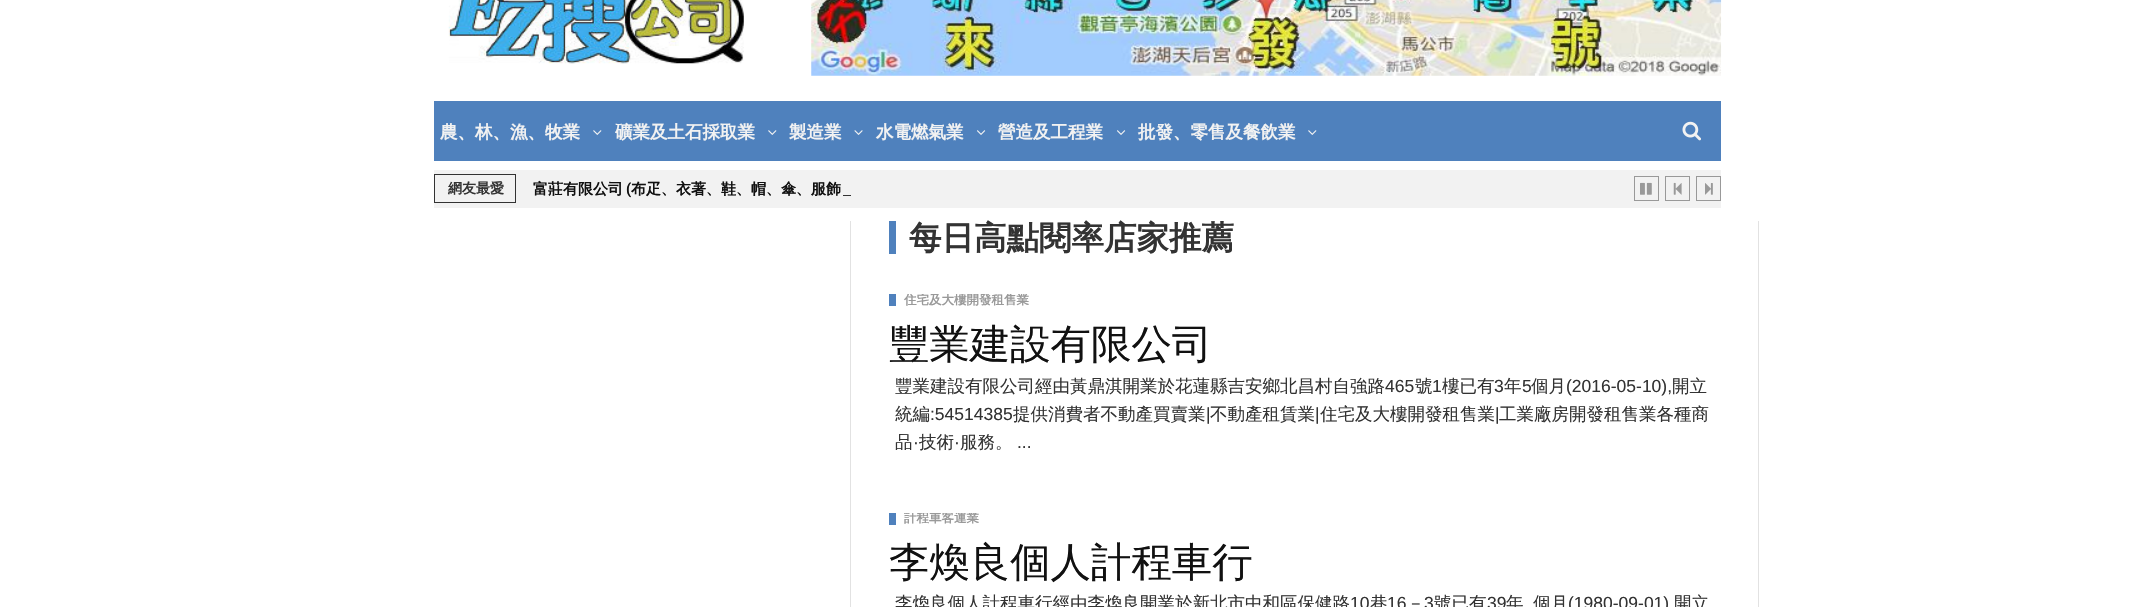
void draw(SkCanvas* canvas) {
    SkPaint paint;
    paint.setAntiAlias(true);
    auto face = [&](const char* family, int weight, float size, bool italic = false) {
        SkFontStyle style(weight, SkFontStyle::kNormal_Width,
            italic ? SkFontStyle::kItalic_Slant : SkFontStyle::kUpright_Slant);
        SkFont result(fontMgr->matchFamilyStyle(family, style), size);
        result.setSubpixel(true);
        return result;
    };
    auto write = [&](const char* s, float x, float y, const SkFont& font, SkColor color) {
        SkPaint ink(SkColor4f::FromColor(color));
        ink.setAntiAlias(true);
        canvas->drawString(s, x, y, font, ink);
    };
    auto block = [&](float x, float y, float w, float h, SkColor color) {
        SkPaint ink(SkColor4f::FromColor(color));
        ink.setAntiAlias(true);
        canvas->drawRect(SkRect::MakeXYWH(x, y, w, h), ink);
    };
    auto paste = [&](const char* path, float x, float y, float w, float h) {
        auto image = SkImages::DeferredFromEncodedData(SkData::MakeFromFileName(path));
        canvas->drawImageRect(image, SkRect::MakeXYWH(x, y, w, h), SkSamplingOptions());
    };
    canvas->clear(SK_ColorWHITE);
    paste("pic1.png", 448, 0, 296, 64);
    paste("pic2.png", 811, 0, 911, 76);
    block(434, 101, 1287, 60, SkColorSetRGB(79, 129, 189));
    auto kFont1 = face("WenQuanYi Zen Hei", 700, 17.5f);
    write("農、林、漁、牧業", 440, 138, kFont1, SkColorSetRGB(242, 242, 242));
    paste("pic3.png", 593, 130, 9, 5);
    write("礦業及土石採取業", 615, 138, kFont1, SkColorSetRGB(242, 242, 242));
    paste("pic3.png", 768, 130, 9, 5);
    write("製造業", 789, 138, kFont1, SkColorSetRGB(242, 242, 242));
    paste("pic4.png", 854, 130, 9, 5);
    write("水電燃氣業", 876, 138, kFont1, SkColorSetRGB(242, 242, 242));
    paste("pic5.png", 977, 130, 9, 5);
    write("營造及工程業", 998, 138, kFont1, SkColorSetRGB(242, 242, 242));
    paste("pic5.png", 1117, 130, 9, 5);
    write("批發、零售及餐飲業", 1138, 138, kFont1, SkColorSetRGB(242, 242, 242));
    paste("pic3.png", 1308, 130, 9, 5);
    paste("pic6.png", 1682, 121, 19, 20);
    block(434, 170, 1287, 38, SkColorSetRGB(242, 242, 242));
    paint.setStyle(SkPaint::kStroke_Style);
    paint.setStrokeWidth(1);
    paint.setColor(SkColorSetRGB(51, 51, 51));
    canvas->drawRect(SkRect::MakeXYWH(434.5f, 174.5f, 81, 28), paint);
    auto kFont2 = face("WenQuanYi Zen Hei", 700, 14);
    write("網友最愛", 448, 193, kFont2, SkColorSetRGB(51, 51, 51));
    auto kFont3 = face("WenQuanYi Zen Hei", 700, 15);
    write("富莊有限公司", 533, 194, kFont3, SkColorSetRGB(17, 17, 17));
    auto kFont4 = face("Roboto", 700, 15);
    write("(", 626, 194, kFont4, SkColorSetRGB(17, 17, 17));
    write("布疋、衣著、鞋、帽、傘、服飾", 631, 194, kFont3, SkColorSetRGB(17, 17, 17));
    block(843, 195, 8, 1, SkColorSetRGB(51, 51, 51));
    paint.setColor(SkColorSetRGB(153, 153, 153));
    canvas->drawRect(SkRect::MakeXYWH(1634.5f, 176.5f, 24, 24), paint);
    paste("pic7.png", 1640, 182, 12, 13);
    canvas->drawRect(SkRect::MakeXYWH(1665.5f, 176.5f, 24, 24), paint);
    paste("pic8.png", 1673, 182, 9, 13);
    canvas->drawRect(SkRect::MakeXYWH(1696.5f, 176.5f, 24, 24), paint);
    paste("pic9.png", 1705, 183, 8, 12);
    block(1758, 221, 1, 386, SkColorSetRGB(226, 226, 226));
    block(850, 221, 1, 386, SkColorSetRGB(226, 226, 226));
    block(889, 221, 7, 33, SkColorSetRGB(79, 129, 189));
    auto kFont5 = face("WenQuanYi Zen Hei", 700, 32.5f);
    write("每日高點閱率店家推薦", 909, 249, kFont5, SkColorSetRGB(51, 51, 51));
    block(889, 294, 7, 12, SkColorSetRGB(79, 129, 189));
    canvas->save();
    canvas->clipRect(SkRect::MakeXYWH(889, 294, 831, 12));
    auto kFont6 = face("WenQuanYi Zen Hei", 700, 12.5f);
    write("住宅及大樓開發租售業", 904, 304, kFont6, SkColorSetRGB(153, 153, 153));
    canvas->restore();
    auto kFont7 = face("WenQuanYi Zen Hei", 500, 40.4f);
    write("豐業建設有限公司", 889, 358, kFont7, SkColorSetRGB(17, 17, 17));
    auto kFont8 = face("WenQuanYi Zen Hei", 500, 17.5f);
    write("豐業建設有限公司經由黃鼎淇開業於花蓮縣吉安鄉北昌村自強路", 895, 392, kFont8, SkColorSetRGB(51, 51, 51));
    auto kFont9 = face("Liberation Sans", 400, 17.5f);
    write("465", 1385, 392, kFont9, SkColorSetRGB(51, 51, 51));
    write("號", 1415, 392, kFont8, SkColorSetRGB(51, 51, 51));
    write("1", 1432, 392, kFont9, SkColorSetRGB(51, 51, 51));
    write("樓已有", 1442, 392, kFont8, SkColorSetRGB(51, 51, 51));
    write("3", 1494, 392, kFont9, SkColorSetRGB(51, 51, 51));
    write("年", 1504, 392, kFont8, SkColorSetRGB(51, 51, 51));
    write("5", 1522, 392, kFont9, SkColorSetRGB(51, 51, 51));
    write("個月", 1531, 392, kFont8, SkColorSetRGB(51, 51, 51));
    write("(2016-05-10),", 1566, 392, kFont9, SkColorSetRGB(51, 51, 51));
    write("開立", 1672, 392, kFont8, SkColorSetRGB(51, 51, 51));
    write("統編", 895, 420, kFont8, SkColorSetRGB(51, 51, 51));
    write(":54514385", 930, 420, kFont9, SkColorSetRGB(51, 51, 51));
    write("提供消費者不動產買賣業", 1013, 420, kFont8, SkColorSetRGB(51, 51, 51));
    write("|", 1206, 420, kFont9, SkColorSetRGB(51, 51, 51));
    write("不動產租賃業", 1210, 420, kFont8, SkColorSetRGB(51, 51, 51));
    write("|", 1315, 420, kFont9, SkColorSetRGB(51, 51, 51));
    write("住宅及大樓開發租售業", 1320, 420, kFont8, SkColorSetRGB(51, 51, 51));
    write("|", 1495, 420, kFont9, SkColorSetRGB(51, 51, 51));
    write("工業廠房開發租售業各種商", 1499, 420, kFont8, SkColorSetRGB(51, 51, 51));
    write("品", 895, 448, kFont8, SkColorSetRGB(51, 51, 51));
    write("·", 913, 448, kFont9, SkColorSetRGB(51, 51, 51));
    write("技術", 919, 448, kFont8, SkColorSetRGB(51, 51, 51));
    write("·", 954, 448, kFont9, SkColorSetRGB(51, 51, 51));
    write("服務。", 960, 448, kFont8, SkColorSetRGB(51, 51, 51));
    write("...", 1017, 448, kFont9, SkColorSetRGB(51, 51, 51));
    block(889, 513, 7, 12, SkColorSetRGB(79, 129, 189));
    canvas->save();
    canvas->clipRect(SkRect::MakeXYWH(889, 513, 831, 12));
    write("計程車客運業", 904, 522, kFont6, SkColorSetRGB(153, 153, 153));
    canvas->restore();
    write("李煥良個人計程車行", 889, 576, kFont7, SkColorSetRGB(17, 17, 17));
    write("李煥良個人計程車行經由李煥良開業於新北市中和區保健路", 895, 609, kFont8, SkColorSetRGB(51, 51, 51));
    write("10", 1350, 609, kFont9, SkColorSetRGB(51, 51, 51));
    write("巷", 1370, 609, kFont8, SkColorSetRGB(51, 51, 51));
    write("16", 1387, 609, kFont9, SkColorSetRGB(51, 51, 51));
    write("－", 1407, 609, kFont8, SkColorSetRGB(51, 51, 51));
    write("3", 1424, 609, kFont9, SkColorSetRGB(51, 51, 51));
    write("號已有", 1434, 609, kFont8, SkColorSetRGB(51, 51, 51));
    write("39", 1487, 609, kFont9, SkColorSetRGB(51, 51, 51));
    write("年", 1506, 609, kFont8, SkColorSetRGB(51, 51, 51));
    write("個月", 1533, 609, kFont8, SkColorSetRGB(51, 51, 51));
    write("(1980-09-01)", 1568, 609, kFont9, SkColorSetRGB(51, 51, 51));
    write("開立", 1674, 609, kFont8, SkColorSetRGB(51, 51, 51));
}
